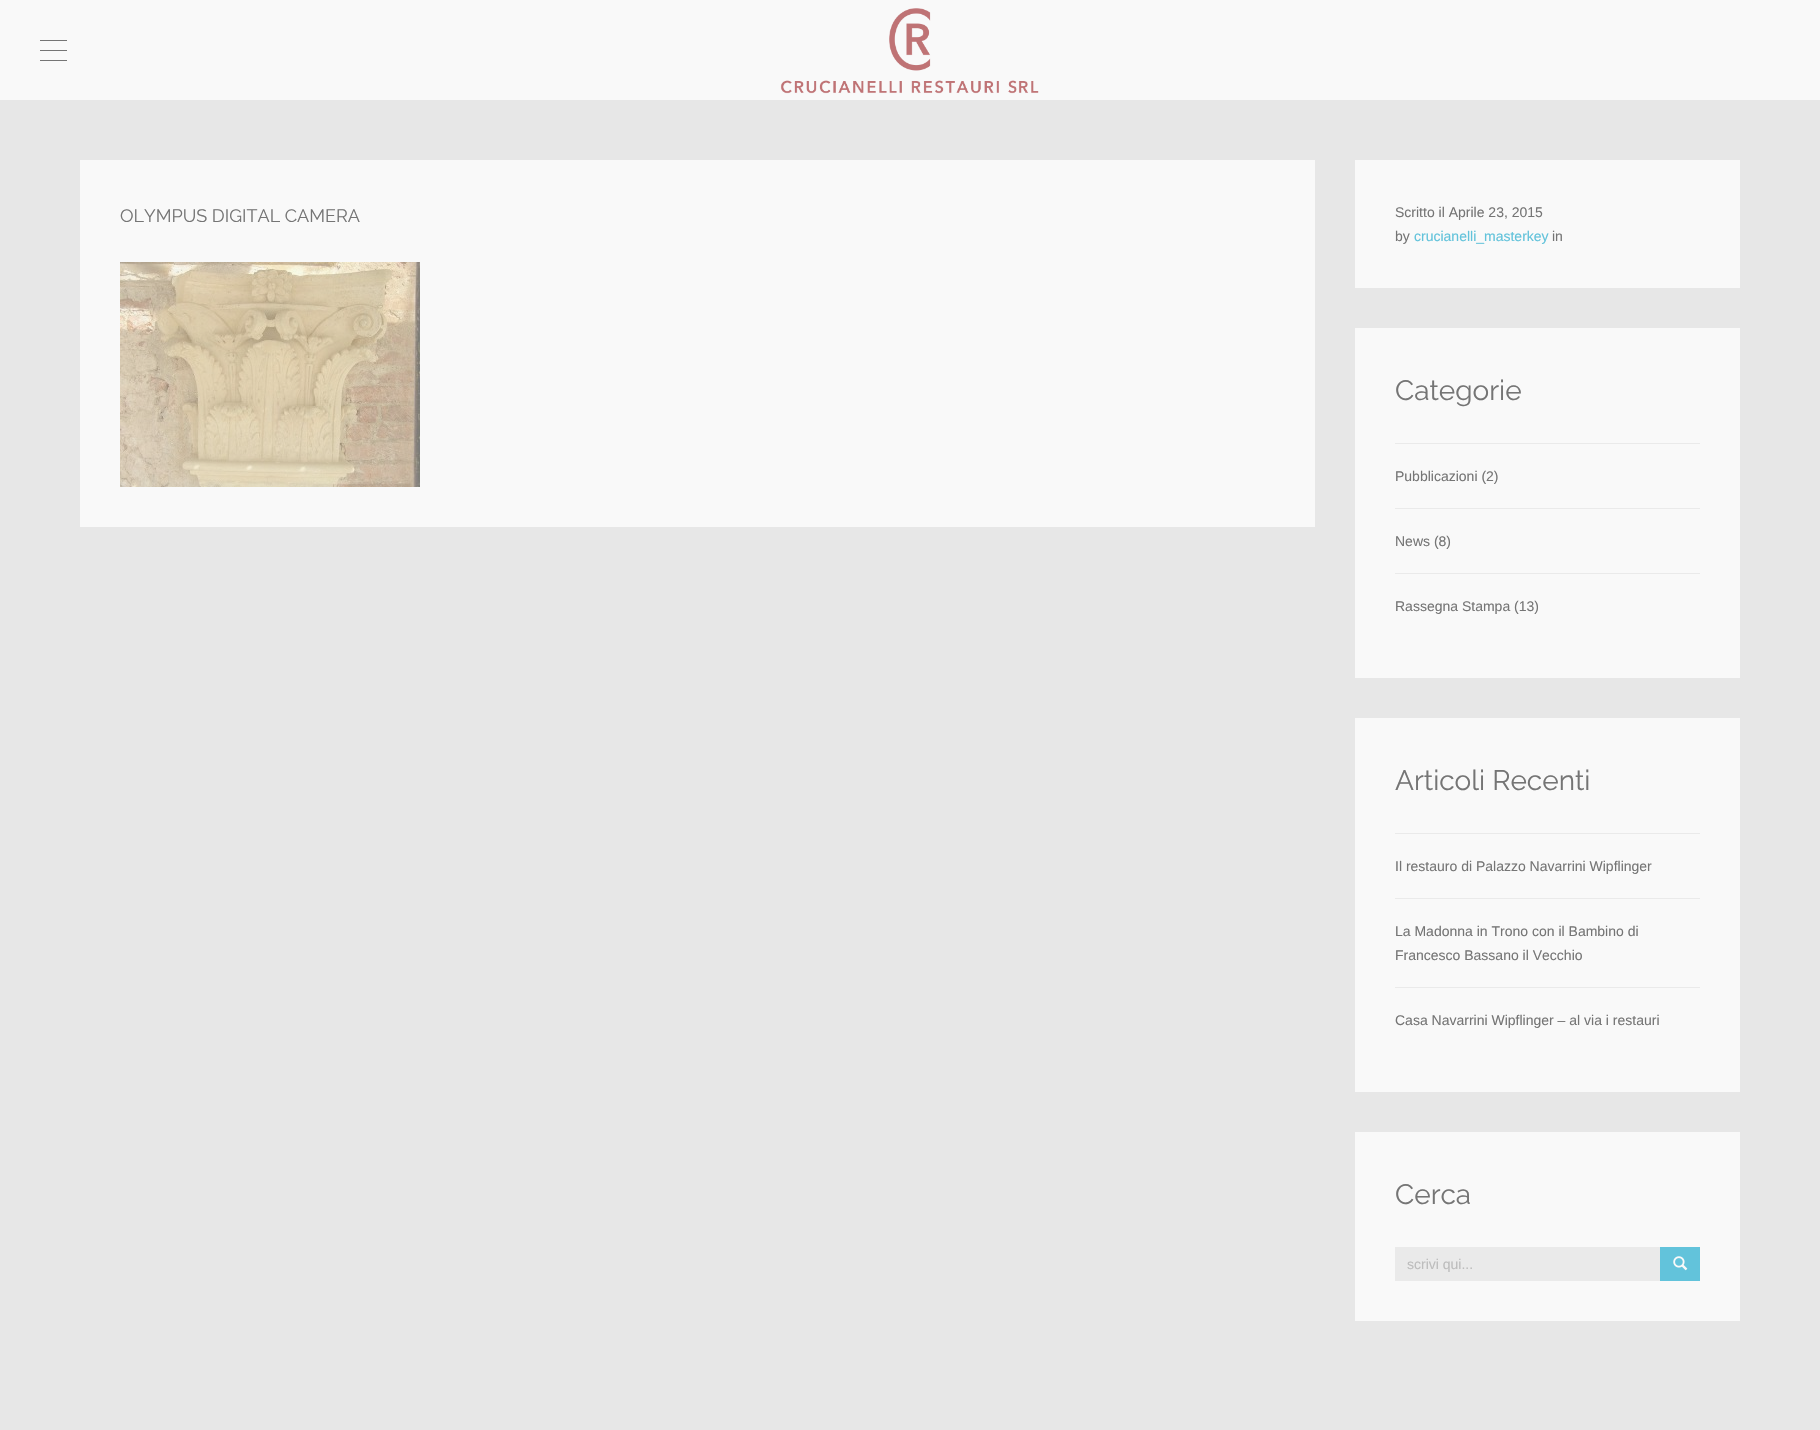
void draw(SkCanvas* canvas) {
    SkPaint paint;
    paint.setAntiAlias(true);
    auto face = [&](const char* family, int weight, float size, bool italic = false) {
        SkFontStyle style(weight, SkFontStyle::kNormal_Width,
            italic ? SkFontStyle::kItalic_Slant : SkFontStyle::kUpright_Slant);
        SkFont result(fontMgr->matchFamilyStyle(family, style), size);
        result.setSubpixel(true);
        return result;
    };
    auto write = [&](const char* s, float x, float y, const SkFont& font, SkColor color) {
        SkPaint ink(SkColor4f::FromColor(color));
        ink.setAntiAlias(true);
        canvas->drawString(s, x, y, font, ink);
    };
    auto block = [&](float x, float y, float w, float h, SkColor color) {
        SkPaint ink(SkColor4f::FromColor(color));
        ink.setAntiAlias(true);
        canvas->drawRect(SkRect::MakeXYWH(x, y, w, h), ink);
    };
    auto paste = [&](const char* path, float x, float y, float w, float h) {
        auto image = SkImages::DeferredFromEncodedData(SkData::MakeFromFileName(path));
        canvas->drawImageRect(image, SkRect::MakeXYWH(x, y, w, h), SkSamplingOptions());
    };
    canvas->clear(SkColorSetRGB(231, 231, 231));
    block(0, 0, 1820, 100, SkColorSetRGB(249, 249, 249));
    block(40, 60, 27, 1, SkColorSetRGB(117, 117, 117));
    block(40, 40, 27, 1, SkColorSetRGB(117, 117, 117));
    block(40, 50, 27, 1, SkColorSetRGB(117, 117, 117));
    paste("pic1.png", 780, 8, 259, 86);
    block(80, 160, 1235, 367, SkColorSetRGB(249, 249, 249));
    auto kFont1 = face("Raleway", 400, 18);
    write("OLYMPUS DIGITAL CAMERA", 120, 222, kFont1, SkColorSetRGB(117, 117, 117));
    paste("pic2.png", 120, 262, 300, 225);
    block(1355, 160, 385, 128, SkColorSetRGB(249, 249, 249));
    auto kFont2 = face("Liberation Sans", 400, 14);
    write("Scritto il Aprile 23, 2015", 1395, 217, kFont2, SkColorSetRGB(117, 117, 117));
    write("by", 1395, 241, kFont2, SkColorSetRGB(117, 117, 117));
    write("crucianelli_masterkey", 1414, 241, kFont2, SkColorSetRGB(98, 195, 219));
    write("in", 1552, 241, kFont2, SkColorSetRGB(117, 117, 117));
    block(1355, 328, 385, 350, SkColorSetRGB(249, 249, 249));
    auto kFont3 = face("Raleway", 400, 28);
    write("Categorie", 1395, 400, kFont3, SkColorSetRGB(117, 117, 117));
    block(1395, 443, 305, 1, SkColorSetRGB(234, 234, 234));
    write("Pubblicazioni (2)", 1395, 481, kFont2, SkColorSetRGB(117, 117, 117));
    block(1395, 508, 305, 1, SkColorSetRGB(234, 234, 234));
    write("News (8)", 1395, 546, kFont2, SkColorSetRGB(117, 117, 117));
    block(1395, 573, 305, 1, SkColorSetRGB(234, 234, 234));
    write("Rassegna Stampa (13)", 1395, 611, kFont2, SkColorSetRGB(117, 117, 117));
    block(1355, 718, 385, 374, SkColorSetRGB(249, 249, 249));
    write("Articoli Recenti", 1395, 790, kFont3, SkColorSetRGB(117, 117, 117));
    block(1395, 833, 305, 1, SkColorSetRGB(234, 234, 234));
    write("Il restauro di Palazzo Navarrini Wipflinger", 1395, 871, kFont2, SkColorSetRGB(117, 117, 117));
    block(1395, 898, 305, 1, SkColorSetRGB(234, 234, 234));
    write("La Madonna in Trono con il Bambino di", 1395, 936, kFont2, SkColorSetRGB(117, 117, 117));
    write("Francesco Bassano il Vecchio", 1395, 960, kFont2, SkColorSetRGB(117, 117, 117));
    block(1395, 987, 305, 1, SkColorSetRGB(234, 234, 234));
    write("Casa Navarrini Wipflinger – al via i restauri", 1395, 1025, kFont2, SkColorSetRGB(117, 117, 117));
    block(1355, 1132, 385, 189, SkColorSetRGB(249, 249, 249));
    write("Cerca", 1395, 1204, kFont3, SkColorSetRGB(117, 117, 117));
    block(1395, 1247, 265, 34, SkColorSetRGB(234, 234, 234));
    write("scrivi qui...", 1407, 1269, kFont2, SkColorSetRGB(189, 189, 189));
    block(1660, 1247, 40, 34, SkColorSetRGB(98, 195, 219));
    paste("pic3.png", 1673, 1256, 15, 15);
}
